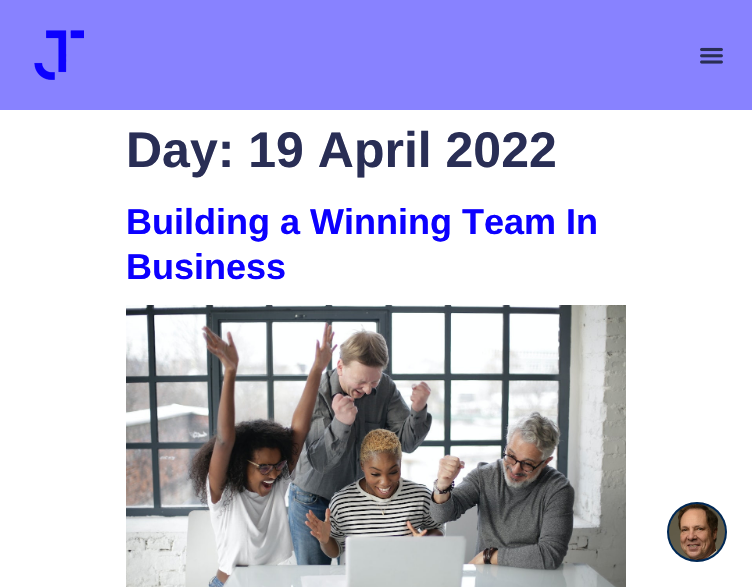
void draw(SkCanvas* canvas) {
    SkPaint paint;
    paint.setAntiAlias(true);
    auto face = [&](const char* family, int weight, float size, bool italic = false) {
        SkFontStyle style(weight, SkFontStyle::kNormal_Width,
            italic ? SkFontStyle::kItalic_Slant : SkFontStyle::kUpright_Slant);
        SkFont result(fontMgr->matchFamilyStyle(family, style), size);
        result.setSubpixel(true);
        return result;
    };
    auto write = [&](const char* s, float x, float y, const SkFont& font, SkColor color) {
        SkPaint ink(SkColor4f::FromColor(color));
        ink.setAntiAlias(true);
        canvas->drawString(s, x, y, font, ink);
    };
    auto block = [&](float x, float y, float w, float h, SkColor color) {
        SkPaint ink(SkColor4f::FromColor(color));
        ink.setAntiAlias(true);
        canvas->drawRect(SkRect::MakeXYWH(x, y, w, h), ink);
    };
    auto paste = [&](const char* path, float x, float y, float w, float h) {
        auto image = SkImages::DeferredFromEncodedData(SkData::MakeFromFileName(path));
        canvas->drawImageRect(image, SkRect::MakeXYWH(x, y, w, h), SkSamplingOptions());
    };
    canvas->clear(SK_ColorWHITE);
    block(0, 0, 752, 110, SkColorSetRGB(136, 130, 255));
    paste("pic1.png", 34, 30, 50, 50);
    paste("pic2.png", 700, 47, 23, 17);
    auto kFont1 = face("Liberation Sans", 700, 50);
    write("Day: 19 April 2022", 126, 167, kFont1, SkColorSetRGB(41, 46, 85));
    auto kFont2 = face("Liberation Sans", 700, 36);
    write("Building a Winning Team In", 126, 234, kFont2, SkColorSetRGB(12, 0, 255));
    write("Business", 126, 279, kFont2, SkColorSetRGB(12, 0, 255));
    paste("pic3.png", 126, 305, 500, 282);
    paint.setColor(SkColorSetRGB(0, 40, 85));
    canvas->drawCircle(697, 532, 30, paint);
    paste("pic4.png", 669, 504, 56, 56);
}
